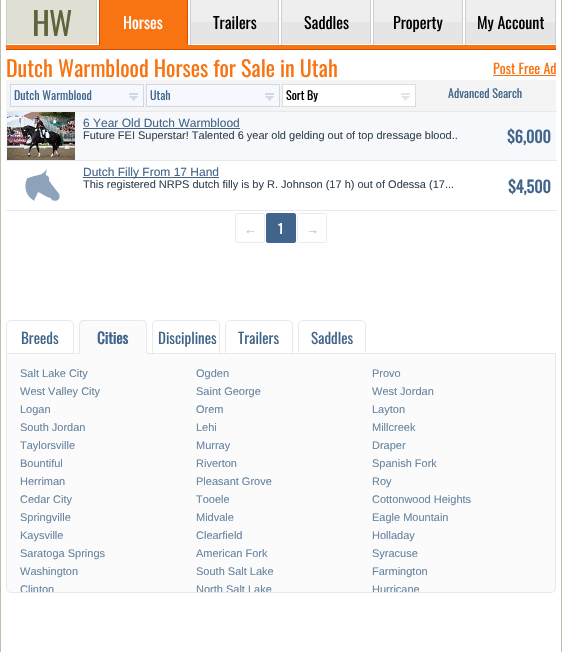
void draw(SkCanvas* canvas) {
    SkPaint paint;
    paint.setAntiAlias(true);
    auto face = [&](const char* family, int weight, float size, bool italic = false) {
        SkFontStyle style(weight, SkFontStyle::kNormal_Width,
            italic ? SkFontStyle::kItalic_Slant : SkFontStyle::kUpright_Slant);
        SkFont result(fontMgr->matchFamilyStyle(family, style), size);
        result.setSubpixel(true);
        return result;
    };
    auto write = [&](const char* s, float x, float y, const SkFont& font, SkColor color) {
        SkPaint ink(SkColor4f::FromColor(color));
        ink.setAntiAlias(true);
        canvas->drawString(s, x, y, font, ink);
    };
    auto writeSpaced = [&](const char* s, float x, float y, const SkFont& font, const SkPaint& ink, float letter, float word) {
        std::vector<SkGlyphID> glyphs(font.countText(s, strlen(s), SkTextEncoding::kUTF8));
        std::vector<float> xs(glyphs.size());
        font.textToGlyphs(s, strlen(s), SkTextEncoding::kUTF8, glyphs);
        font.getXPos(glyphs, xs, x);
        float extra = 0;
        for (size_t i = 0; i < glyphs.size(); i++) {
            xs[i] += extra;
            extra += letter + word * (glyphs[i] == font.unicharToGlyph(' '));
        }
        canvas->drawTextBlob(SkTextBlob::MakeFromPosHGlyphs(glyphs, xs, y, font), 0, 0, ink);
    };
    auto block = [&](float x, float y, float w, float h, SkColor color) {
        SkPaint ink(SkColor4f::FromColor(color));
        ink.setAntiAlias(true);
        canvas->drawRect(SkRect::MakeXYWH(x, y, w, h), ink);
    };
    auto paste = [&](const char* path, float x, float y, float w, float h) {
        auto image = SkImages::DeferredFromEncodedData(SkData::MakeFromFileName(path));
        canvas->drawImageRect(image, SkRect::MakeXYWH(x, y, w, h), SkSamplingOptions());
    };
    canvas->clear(SK_ColorWHITE);
    block(561, 0, 1, 652, SkColorSetRGB(190, 191, 172));
    block(0, 0, 1, 652, SkColorSetRGB(190, 191, 172));
    block(7, 0, 89, 44, SkColorSetRGB(223, 224, 211));
    block(96, 0, 1, 45, SkColorSetRGB(200, 207, 213));
    block(96, 44, 1, 1, SK_ColorWHITE);
    block(6, 0, 1, 45, SkColorSetRGB(200, 207, 213));
    auto kFont1 = face("Oswald", 400, 32);
    paint.setColor(SkColorSetRGB(97, 99, 61));
    writeSpaced("HW", 32, 36, kFont1, paint, -1, 0);
    block(100, 0, 87, 44, SkColorSetRGB(248, 115, 17));
    block(187, 0, 1, 45, SkColorSetRGB(201, 80, 0));
    block(99, 44, 89, 1, SkColorSetRGB(248, 115, 17));
    block(99, 0, 1, 45, SkColorSetRGB(201, 80, 0));
    auto kFont2 = face("Oswald", 400, 16);
    write("Horses", 123, 29, kFont2, SK_ColorWHITE);
    block(191, 0, 87, 22, SkColorSetRGB(238, 238, 238));
    block(191, 22, 87, 22, SkColorSetRGB(229, 229, 229));
    block(278, 0, 1, 45, SkColorSetRGB(200, 207, 213));
    block(278, 44, 1, 1, SK_ColorWHITE);
    block(190, 0, 1, 45, SkColorSetRGB(200, 207, 213));
    write("Trailers", 213, 29, kFont2, SK_ColorBLACK);
    block(282, 0, 88, 22, SkColorSetRGB(238, 238, 238));
    block(282, 22, 88, 22, SkColorSetRGB(229, 229, 229));
    block(370, 0, 1, 45, SkColorSetRGB(200, 207, 213));
    block(370, 44, 1, 1, SK_ColorWHITE);
    block(281, 0, 1, 45, SkColorSetRGB(200, 207, 213));
    write("Saddles", 304, 29, kFont2, SK_ColorBLACK);
    block(374, 0, 88, 22, SkColorSetRGB(238, 238, 238));
    block(374, 22, 88, 22, SkColorSetRGB(229, 229, 229));
    block(462, 0, 1, 45, SkColorSetRGB(200, 207, 213));
    block(462, 44, 1, 1, SK_ColorWHITE);
    block(373, 0, 1, 45, SkColorSetRGB(200, 207, 213));
    write("Property", 393, 29, kFont2, SK_ColorBLACK);
    block(466, 0, 89, 22, SkColorSetRGB(238, 238, 238));
    block(466, 22, 89, 22, SkColorSetRGB(229, 229, 229));
    block(555, 0, 1, 45, SkColorSetRGB(200, 207, 213));
    block(555, 44, 1, 1, SK_ColorWHITE);
    block(465, 0, 1, 45, SkColorSetRGB(200, 207, 213));
    write("My Account", 477, 29, kFont2, SK_ColorBLACK);
    block(6, 45, 550, 4, SkColorSetRGB(248, 115, 17));
    block(6, 49, 550, 1, SkColorSetRGB(201, 80, 0));
    auto kFont3 = face("Oswald", 400, 22);
    write("Dutch Warmblood Horses for Sale in Utah", 6, 77, kFont3, SkColorSetRGB(248, 115, 17));
    auto kFont4 = face("Oswald", 400, 14);
    write("Post Free Ad", 493, 74, kFont4, SkColorSetRGB(248, 115, 17));
    block(493, 75, 63, 1, SkColorSetRGB(248, 115, 17));
    block(6, 80, 550, 31, SkColorSetRGB(244, 244, 244));
    block(11, 85, 132, 21, SkColorSetRGB(245, 249, 255));
    paste("pic1.png", 129, 93, 9, 8);
    paint.setStyle(SkPaint::kStroke_Style);
    paint.setStrokeWidth(1);
    paint.setColor(SkColorSetRGB(209, 216, 226));
    canvas->drawRect(SkRect::MakeXYWH(10.5f, 84.5f, 133, 22), paint);
    auto kFont5 = face("Oswald", 400, 12);
    write("Dutch Warmblood", 14, 100, kFont5, SkColorSetRGB(65, 101, 138));
    block(147, 85, 132, 21, SkColorSetRGB(245, 249, 255));
    paste("pic1.png", 265, 93, 9, 8);
    canvas->drawRect(SkRect::MakeXYWH(146.5f, 84.5f, 133, 22), paint);
    write("Utah", 150, 100, kFont5, SkColorSetRGB(65, 101, 138));
    block(283, 85, 132, 21, SK_ColorWHITE);
    paste("pic2.png", 401, 93, 9, 8);
    paint.setColor(SkColorSetRGB(221, 221, 221));
    canvas->drawRect(SkRect::MakeXYWH(282.5f, 84.5f, 133, 22), paint);
    write("Sort By", 286, 100, kFont5, SK_ColorBLACK);
    write("Advanced Search", 448, 98, kFont5, SkColorSetRGB(65, 101, 138));
    block(6, 112, 550, 48, SkColorSetRGB(246, 248, 251));
    block(6, 111, 551, 1, SkColorSetRGB(231, 234, 237));
    block(6, 160, 551, 1, SkColorSetRGB(231, 234, 237));
    paste("pic3.png", 7, 112, 68, 48);
    auto kFont6 = face("Liberation Sans", 400, 12);
    write("6 Year Old Dutch Warmblood", 83, 127, kFont6, SkColorSetRGB(65, 101, 138));
    block(83, 128, 157, 1, SkColorSetRGB(65, 101, 138));
    auto kFont7 = face("Liberation Sans", 400, 11);
    write("Future FEI Superstar! Talented 6 year old gelding out of top dressage blood..", 83, 139, kFont7, SkColorSetRGB(53, 67, 80));
    auto kFont8 = face("Oswald", 700, 16);
    write("$6,000", 507, 143, kFont8, SkColorSetRGB(65, 101, 138));
    block(6, 210, 551, 1, SkColorSetRGB(231, 234, 237));
    paste("pic4.png", 25, 169, 35, 32);
    block(83, 177, 136, 1, SkColorSetRGB(65, 101, 138));
    write("Dutch Filly From 17 Hand", 83, 176, kFont6, SkColorSetRGB(65, 101, 138));
    write("This registered NRPS dutch filly is by R. Johnson (17 h) out of Odessa (17...", 83, 188, kFont7, SkColorSetRGB(53, 67, 80));
    write("$4,500", 508, 193, kFont8, SkColorSetRGB(65, 101, 138));
    paint.setColor(SkColorSetRGB(232, 236, 241));
    canvas->drawRoundRect(SkRect::MakeXYWH(235.5f, 213.5f, 29, 29), 1.5f, 1.5f, paint);
    auto kFont9 = face("Liberation Serif", 400, 13);
    write("←", 244, 234, kFont9, SkColorSetRGB(179, 194, 208));
    paint.setStyle(SkPaint::kFill_Style);
    paint.setColor(SkColorSetRGB(65, 101, 138));
    canvas->drawRoundRect(SkRect::MakeXYWH(266.5f, 213.5f, 29, 29), 1.5f, 1.5f, paint);
    paint.setStyle(SkPaint::kStroke_Style);
    paint.setColor(SkColorSetRGB(65, 101, 154));
    canvas->drawRoundRect(SkRect::MakeXYWH(266.5f, 213.5f, 29, 29), 1.5f, 1.5f, paint);
    auto kFont10 = face("Oswald", 700, 13);
    write("1", 278, 234, kFont10, SK_ColorWHITE);
    paint.setColor(SkColorSetRGB(232, 236, 241));
    canvas->drawRoundRect(SkRect::MakeXYWH(297.5f, 213.5f, 29, 29), 1.5f, 1.5f, paint);
    write("→", 306, 234, kFont9, SkColorSetRGB(179, 194, 208));
    paint.setStyle(SkPaint::kFill_Style);
    paint.setColor(SkColorSetRGB(251, 251, 251));
    canvas->drawPath(SkPathBuilder().moveTo(6.5f, 353.5f).lineTo(555.5f, 353.5f).lineTo(555.5f, 588).cubicTo(555.5f, 590.5f, 553.5f, 592.5f, 551, 592.5f).lineTo(11, 592.5f).cubicTo(8.5f, 592.5f, 6.5f, 590.5f, 6.5f, 588).close().detach(), paint);
    paint.setStyle(SkPaint::kStroke_Style);
    paint.setColor(SkColorSetRGB(231, 234, 237));
    canvas->drawPath(SkPathBuilder().moveTo(6.5f, 353.5f).lineTo(555.5f, 353.5f).lineTo(555.5f, 588).cubicTo(555.5f, 590.5f, 553.5f, 592.5f, 551, 592.5f).lineTo(11, 592.5f).cubicTo(8.5f, 592.5f, 6.5f, 590.5f, 6.5f, 588).close().detach(), paint);
    canvas->drawPath(SkPathBuilder().moveTo(11, 320.5f).lineTo(69, 320.5f).cubicTo(71.5f, 320.5f, 73.5f, 322.5f, 73.5f, 325).lineTo(73.5f, 353.5f).lineTo(6.5f, 353.5f).lineTo(6.5f, 325).cubicTo(6.5f, 322.5f, 8.5f, 320.5f, 11, 320.5f).close().detach(), paint);
    auto kFont11 = face("Oswald", 400, 15);
    write("Breeds", 21, 344, kFont11, SkColorSetRGB(65, 101, 138));
    paint.setStyle(SkPaint::kFill_Style);
    paint.setColor(SkColorSetRGB(251, 251, 251));
    canvas->drawPath(SkPathBuilder().moveTo(84, 320).lineTo(142, 320).cubicTo(145, 320, 147, 322, 147, 325).lineTo(147, 354).lineTo(79, 354).lineTo(79, 325).cubicTo(79, 322, 81, 320, 84, 320).close().detach(), paint);
    paint.setColor(SkColorSetRGB(231, 234, 237));
    canvas->drawPath(SkPathBuilder().moveTo(84, 320).cubicTo(82, 320, 81, 320, 80, 321).lineTo(81, 322).lineTo(84, 321).lineTo(142, 321).lineTo(145, 322).lineTo(146, 321).cubicTo(145, 320, 144, 320, 142, 320).close().detach(), paint);
    canvas->drawPath(SkPathBuilder().moveTo(147, 354).lineTo(147, 325).cubicTo(147, 323.5f, 146.5f, 322, 145.5f, 321.5f).lineTo(145, 322).cubicTo(145.5f, 323, 146, 324, 146, 325).lineTo(146, 353).close().detach(), paint);
    paint.setColor(SkColorSetRGB(251, 251, 251));
    canvas->drawPath(SkPathBuilder().moveTo(147, 354).lineTo(146, 353).lineTo(80, 353).lineTo(79, 354).close().detach(), paint);
    paint.setColor(SkColorSetRGB(231, 234, 237));
    canvas->drawPath(SkPathBuilder().moveTo(79, 354).lineTo(80, 353).lineTo(80, 325).cubicTo(80, 324, 80.5f, 323, 81, 322).lineTo(80.5f, 321.5f).cubicTo(79.5f, 322, 79, 323.5f, 79, 325).close().detach(), paint);
    auto kFont12 = face("Oswald", 700, 15);
    write("Cities", 97, 344, kFont12, SkColorSetRGB(65, 101, 138));
    paint.setStyle(SkPaint::kStroke_Style);
    canvas->drawPath(SkPathBuilder().moveTo(157, 320.5f).lineTo(215, 320.5f).cubicTo(217.5f, 320.5f, 219.5f, 322.5f, 219.5f, 325).lineTo(219.5f, 353.5f).lineTo(152.5f, 353.5f).lineTo(152.5f, 325).cubicTo(152.5f, 322.5f, 154.5f, 320.5f, 157, 320.5f).close().detach(), paint);
    write("Disciplines", 158, 344, kFont11, SkColorSetRGB(65, 101, 138));
    canvas->drawPath(SkPathBuilder().moveTo(230, 320.5f).lineTo(288, 320.5f).cubicTo(290.5f, 320.5f, 292.5f, 322.5f, 292.5f, 325).lineTo(292.5f, 353.5f).lineTo(225.5f, 353.5f).lineTo(225.5f, 325).cubicTo(225.5f, 322.5f, 227.5f, 320.5f, 230, 320.5f).close().detach(), paint);
    write("Trailers", 238, 344, kFont11, SkColorSetRGB(65, 101, 138));
    canvas->drawPath(SkPathBuilder().moveTo(303, 320.5f).lineTo(361, 320.5f).cubicTo(363.5f, 320.5f, 365.5f, 322.5f, 365.5f, 325).lineTo(365.5f, 353.5f).lineTo(298.5f, 353.5f).lineTo(298.5f, 325).cubicTo(298.5f, 322.5f, 300.5f, 320.5f, 303, 320.5f).close().detach(), paint);
    write("Saddles", 311, 344, kFont11, SkColorSetRGB(65, 101, 138));
    write("Salt Lake City", 20, 377, kFont7, SkColorSetRGB(103, 132, 161));
    write("Ogden", 196, 377, kFont7, SkColorSetRGB(103, 132, 161));
    write("Provo", 372, 377, kFont7, SkColorSetRGB(103, 132, 161));
    write("West Valley City", 20, 395, kFont7, SkColorSetRGB(103, 132, 161));
    write("Saint George", 196, 395, kFont7, SkColorSetRGB(103, 132, 161));
    write("West Jordan", 372, 395, kFont7, SkColorSetRGB(103, 132, 161));
    write("Logan", 20, 413, kFont7, SkColorSetRGB(103, 132, 161));
    write("Orem", 196, 413, kFont7, SkColorSetRGB(103, 132, 161));
    write("Layton", 372, 413, kFont7, SkColorSetRGB(103, 132, 161));
    write("South Jordan", 20, 431, kFont7, SkColorSetRGB(103, 132, 161));
    write("Lehi", 196, 431, kFont7, SkColorSetRGB(103, 132, 161));
    write("Millcreek", 372, 431, kFont7, SkColorSetRGB(103, 132, 161));
    write("Taylorsville", 20, 449, kFont7, SkColorSetRGB(103, 132, 161));
    write("Murray", 196, 449, kFont7, SkColorSetRGB(103, 132, 161));
    write("Draper", 372, 449, kFont7, SkColorSetRGB(103, 132, 161));
    write("Bountiful", 20, 467, kFont7, SkColorSetRGB(103, 132, 161));
    write("Riverton", 196, 467, kFont7, SkColorSetRGB(103, 132, 161));
    write("Spanish Fork", 372, 467, kFont7, SkColorSetRGB(103, 132, 161));
    write("Herriman", 20, 485, kFont7, SkColorSetRGB(103, 132, 161));
    write("Pleasant Grove", 196, 485, kFont7, SkColorSetRGB(103, 132, 161));
    write("Roy", 372, 485, kFont7, SkColorSetRGB(103, 132, 161));
    write("Cedar City", 20, 503, kFont7, SkColorSetRGB(103, 132, 161));
    write("Tooele", 196, 503, kFont7, SkColorSetRGB(103, 132, 161));
    write("Cottonwood Heights", 372, 503, kFont7, SkColorSetRGB(103, 132, 161));
    write("Springville", 20, 521, kFont7, SkColorSetRGB(103, 132, 161));
    write("Midvale", 196, 521, kFont7, SkColorSetRGB(103, 132, 161));
    write("Eagle Mountain", 372, 521, kFont7, SkColorSetRGB(103, 132, 161));
    write("Kaysville", 20, 539, kFont7, SkColorSetRGB(103, 132, 161));
    write("Clearfield", 196, 539, kFont7, SkColorSetRGB(103, 132, 161));
    write("Holladay", 372, 539, kFont7, SkColorSetRGB(103, 132, 161));
    write("Saratoga Springs", 20, 557, kFont7, SkColorSetRGB(103, 132, 161));
    write("American Fork", 196, 557, kFont7, SkColorSetRGB(103, 132, 161));
    write("Syracuse", 372, 557, kFont7, SkColorSetRGB(103, 132, 161));
    write("Washington", 20, 575, kFont7, SkColorSetRGB(103, 132, 161));
    write("South Salt Lake", 196, 575, kFont7, SkColorSetRGB(103, 132, 161));
    write("Farmington", 372, 575, kFont7, SkColorSetRGB(103, 132, 161));
    canvas->save();
    canvas->clipPath(SkPathBuilder().moveTo(7, 354).lineTo(555, 354).lineTo(555, 588).cubicTo(555, 590, 553, 592, 551, 592).lineTo(11, 592).cubicTo(9, 592, 7, 590, 7, 588).close().detach(), true);
    write("Clinton", 20, 593, kFont7, SkColorSetRGB(103, 132, 161));
    write("North Salt Lake", 196, 593, kFont7, SkColorSetRGB(103, 132, 161));
    write("Hurricane", 372, 593, kFont7, SkColorSetRGB(103, 132, 161));
    canvas->restore();
}
